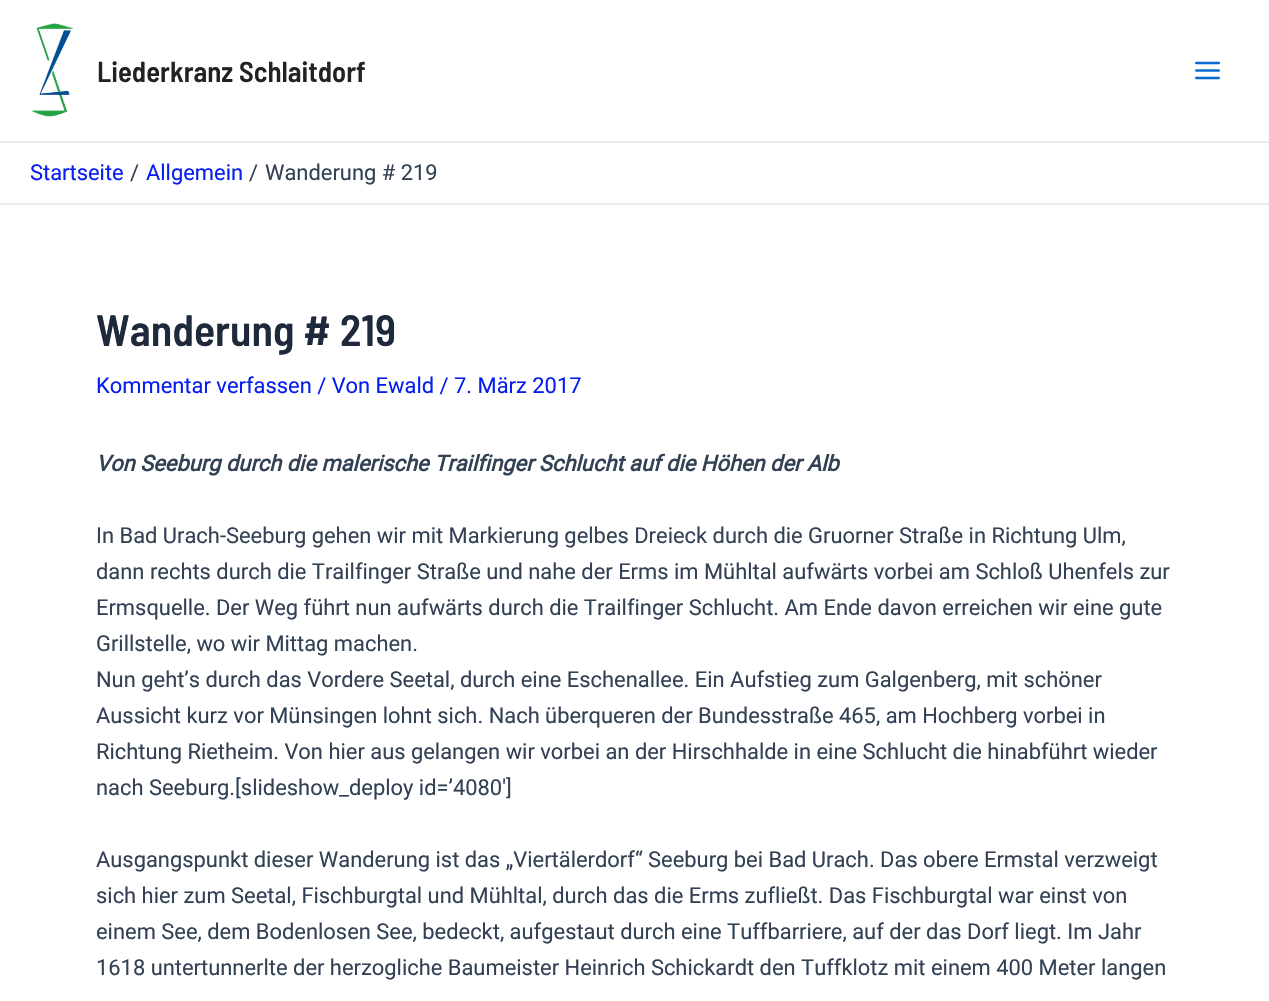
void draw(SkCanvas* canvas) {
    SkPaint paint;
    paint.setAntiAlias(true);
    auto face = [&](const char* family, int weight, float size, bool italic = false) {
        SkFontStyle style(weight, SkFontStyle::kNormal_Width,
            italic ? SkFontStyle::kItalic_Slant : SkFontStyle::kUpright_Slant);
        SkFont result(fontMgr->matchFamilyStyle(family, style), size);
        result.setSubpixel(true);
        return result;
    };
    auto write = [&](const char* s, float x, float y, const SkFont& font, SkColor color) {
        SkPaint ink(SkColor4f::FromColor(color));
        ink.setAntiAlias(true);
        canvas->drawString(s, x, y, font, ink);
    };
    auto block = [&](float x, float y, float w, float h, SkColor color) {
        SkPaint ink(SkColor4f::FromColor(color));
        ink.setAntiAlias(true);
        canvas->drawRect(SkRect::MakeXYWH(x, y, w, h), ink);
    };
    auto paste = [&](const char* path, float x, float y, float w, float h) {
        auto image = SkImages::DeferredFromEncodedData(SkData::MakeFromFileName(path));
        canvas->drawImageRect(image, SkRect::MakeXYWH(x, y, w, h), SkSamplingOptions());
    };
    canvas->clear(SK_ColorWHITE);
    block(0, 141, 1269, 2, SkColorSetRGB(234, 234, 234));
    paste("pic1.png", 31, 23, 43, 94);
    auto kFont1 = face("Barlow Semi Condensed", 600, 28.75f);
    write("Liederkranz Schlaitdorf", 97, 82, kFont1, SkColorSetRGB(34, 34, 34));
    paste("pic2.png", 1195, 61, 25, 19);
    block(0, 203, 1269, 2, SkColorSetRGB(234, 234, 234));
    auto kFont2 = face("Roboto", 400, 21.9f);
    write("Startseite", 30, 180, kFont2, SkColorSetRGB(6, 30, 241));
    write("/", 130, 180, kFont2, SkColorSetRGB(51, 65, 85));
    write("Allgemein", 146, 180, kFont2, SkColorSetRGB(6, 30, 241));
    write("/", 249, 180, kFont2, SkColorSetRGB(51, 65, 85));
    write("Wanderung # 219", 265, 180, kFont2, SkColorSetRGB(51, 65, 85));
    auto kFont3 = face("Barlow Semi Condensed", 600, 43.75f);
    write("Wanderung # 219", 96, 346, kFont3, SkColorSetRGB(30, 41, 59));
    write("Kommentar verfassen / Von Ewald / 7. März 2017", 96, 393, kFont2, SkColorSetRGB(6, 30, 241));
    auto kFont4 = face("Roboto", 700, 21.9f, true);
    write("Von Seeburg durch die malerische Trailfinger Schlucht auf die Höhen der Alb", 96, 471, kFont4, SkColorSetRGB(51, 65, 85));
    write("In Bad Urach-Seeburg gehen wir mit Markierung gelbes Dreieck durch die Gruorner Straße in Richtung Ulm,", 96, 543, kFont2, SkColorSetRGB(51, 65, 85));
    write("dann rechts durch die Trailfinger Straße und nahe der Erms im Mühltal aufwärts vorbei am Schloß Uhenfels zur", 96, 579, kFont2, SkColorSetRGB(51, 65, 85));
    write("Ermsquelle. Der Weg führt nun aufwärts durch die Trailfinger Schlucht. Am Ende davon erreichen wir eine gute", 96, 615, kFont2, SkColorSetRGB(51, 65, 85));
    write("Grillstelle, wo wir Mittag machen.", 96, 651, kFont2, SkColorSetRGB(51, 65, 85));
    write("Nun geht’s durch das Vordere Seetal, durch eine Eschenallee. Ein Aufstieg zum Galgenberg, mit schöner", 96, 687, kFont2, SkColorSetRGB(51, 65, 85));
    write("Aussicht kurz vor Münsingen lohnt sich. Nach überqueren der Bundesstraße 465, am Hochberg vorbei in", 96, 723, kFont2, SkColorSetRGB(51, 65, 85));
    write("Richtung Rietheim. Von hier aus gelangen wir vorbei an der Hirschhalde in eine Schlucht die hinabführt wieder", 96, 759, kFont2, SkColorSetRGB(51, 65, 85));
    write("nach Seeburg.[slideshow_deploy id=’4080′]", 96, 795, kFont2, SkColorSetRGB(51, 65, 85));
    write("Ausgangspunkt dieser Wanderung ist das „Viertälerdorf“ Seeburg bei Bad Urach. Das obere Ermstal verzweigt", 96, 867, kFont2, SkColorSetRGB(51, 65, 85));
    write("sich hier zum Seetal, Fischburgtal und Mühltal, durch das die Erms zufließt. Das Fischburgtal war einst von", 96, 903, kFont2, SkColorSetRGB(51, 65, 85));
    write("einem See, dem Bodenlosen See, bedeckt, aufgestaut durch eine Tuffbarriere, auf der das Dorf liegt. Im Jahr", 96, 939, kFont2, SkColorSetRGB(51, 65, 85));
    write("1618 untertunnerlte der herzogliche Baumeister Heinrich Schickardt den Tuffklotz mit einem 400 Meter langen", 96, 975, kFont2, SkColorSetRGB(51, 65, 85));
}
